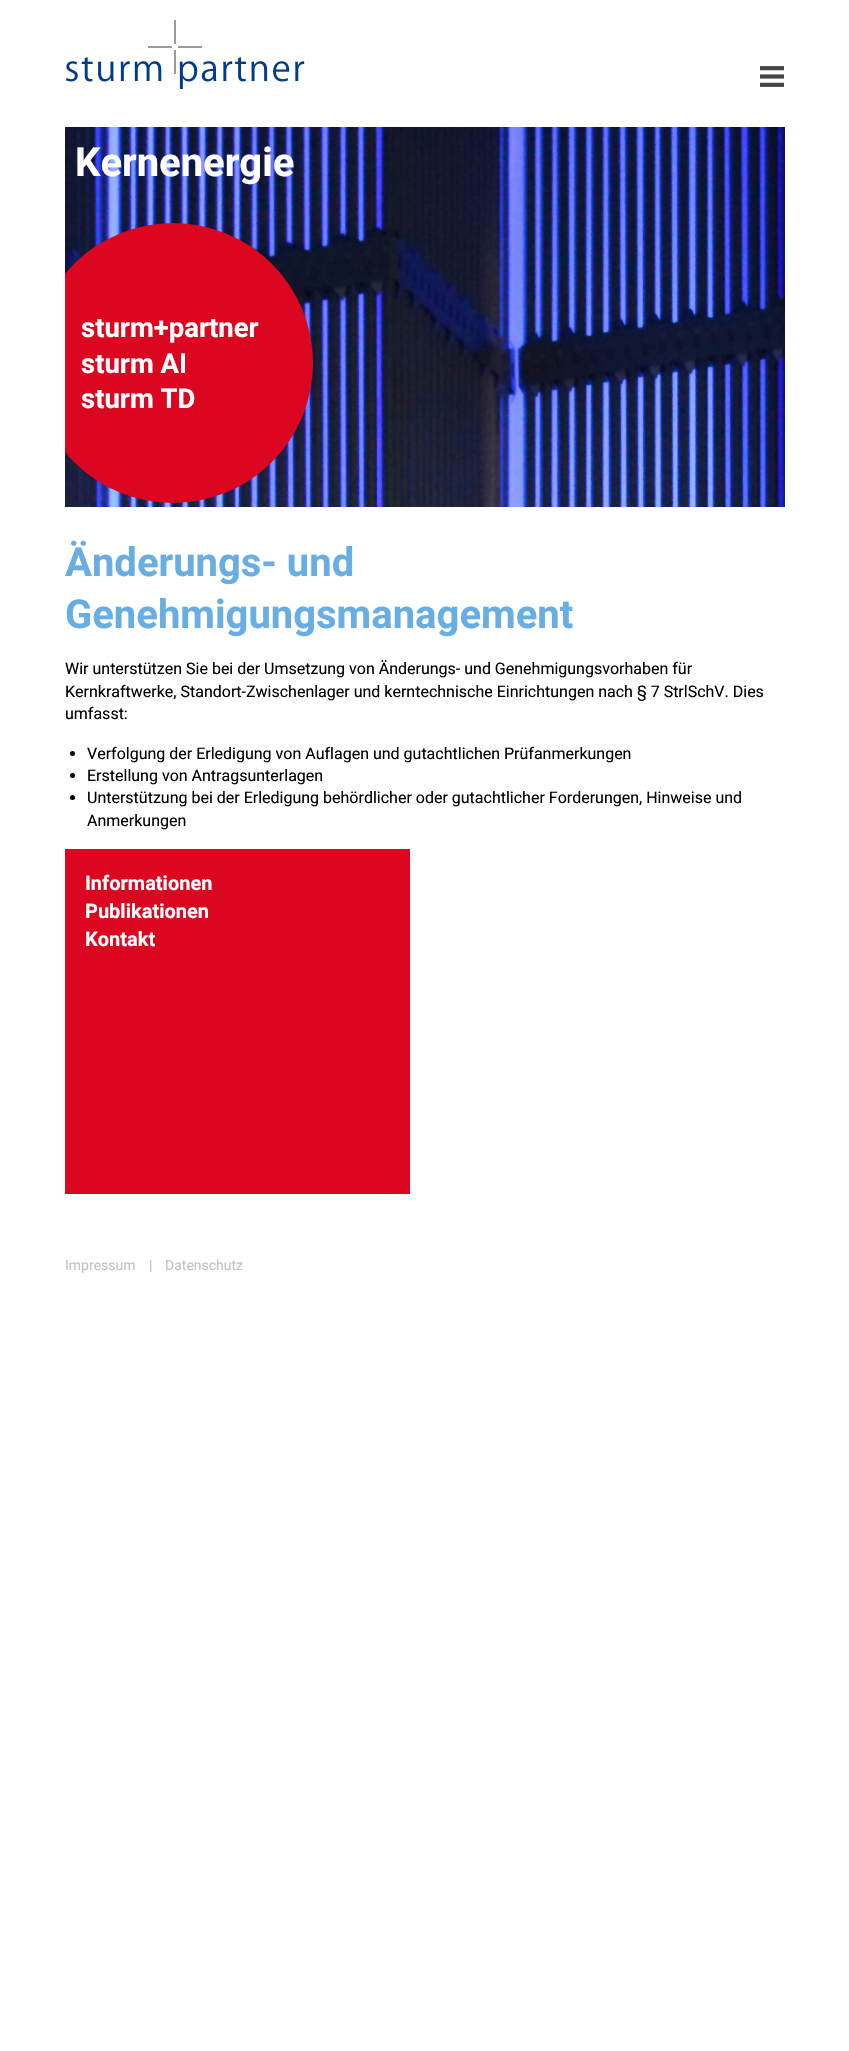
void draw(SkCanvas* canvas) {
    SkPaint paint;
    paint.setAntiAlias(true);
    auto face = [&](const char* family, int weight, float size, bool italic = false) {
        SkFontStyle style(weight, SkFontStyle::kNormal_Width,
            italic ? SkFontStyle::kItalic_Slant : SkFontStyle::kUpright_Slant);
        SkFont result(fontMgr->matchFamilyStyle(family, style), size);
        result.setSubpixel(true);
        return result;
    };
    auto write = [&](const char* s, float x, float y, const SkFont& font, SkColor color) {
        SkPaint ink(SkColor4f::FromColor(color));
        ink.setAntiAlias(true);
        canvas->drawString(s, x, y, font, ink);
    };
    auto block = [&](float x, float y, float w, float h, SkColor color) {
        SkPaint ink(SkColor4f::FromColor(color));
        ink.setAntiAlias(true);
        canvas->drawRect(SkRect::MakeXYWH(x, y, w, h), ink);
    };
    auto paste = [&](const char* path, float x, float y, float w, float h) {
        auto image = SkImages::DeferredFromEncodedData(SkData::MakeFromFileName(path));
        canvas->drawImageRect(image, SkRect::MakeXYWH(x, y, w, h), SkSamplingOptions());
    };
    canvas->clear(SK_ColorWHITE);
    paste("pic1.png", 65, 20, 240, 69);
    paste("pic2.png", 760, 66, 24, 21);
    paste("pic3.png", 65, 127, 720, 380);
    auto kFont1 = face("Roboto", 700, 40);
    write("Kernenergie", 75, 176, kFont1, SK_ColorWHITE);
    canvas->save();
    canvas->clipRect(SkRect::MakeXYWH(65, 127, 720, 380));
    paint.setColor(SkColorSetRGB(219, 7, 32));
    canvas->drawCircle(173, 363, 140, paint);
    canvas->restore();
    auto kFont2 = face("Roboto", 700, 27.5f);
    write("sturm+partner", 81, 337, kFont2, SK_ColorWHITE);
    write("sturm AI", 81, 373, kFont2, SK_ColorWHITE);
    write("sturm TD", 81, 408, kFont2, SK_ColorWHITE);
    write("Änderungs- und", 65, 576, kFont1, SkColorSetRGB(105, 174, 227));
    write("Genehmigungsmanagement", 65, 628, kFont1, SkColorSetRGB(105, 174, 227));
    auto kFont3 = face("Roboto", 400, 16);
    write("Wir unterstützen Sie bei der Umsetzung von Änderungs- und Genehmigungsvorhaben für", 65, 674, kFont3, SK_ColorBLACK);
    write("Kernkraftwerke, Standort-Zwischenlager und kerntechnische Einrichtungen nach § 7 StrlSchV. Dies", 65, 697, kFont3, SK_ColorBLACK);
    write("umfasst:", 65, 719, kFont3, SK_ColorBLACK);
    paint.setColor(SK_ColorBLACK);
    canvas->drawCircle(72.5f, 753.5f, 2.5f, paint);
    write("Verfolgung der Erledigung von Auflagen und gutachtlichen Prüfanmerkungen", 87, 759, kFont3, SK_ColorBLACK);
    canvas->drawCircle(72.5f, 775.5f, 2.5f, paint);
    write("Erstellung von Antragsunterlagen", 87, 781, kFont3, SK_ColorBLACK);
    canvas->drawCircle(72.5f, 797.5f, 2.5f, paint);
    write("Unterstützung bei der Erledigung behördlicher oder gutachtlicher Forderungen, Hinweise und", 87, 803, kFont3, SK_ColorBLACK);
    write("Anmerkungen", 87, 826, kFont3, SK_ColorBLACK);
    block(65, 849, 345, 345, SkColorSetRGB(219, 7, 32));
    auto kFont4 = face("Roboto", 700, 20);
    write("Informationen", 85, 890, kFont4, SK_ColorWHITE);
    write("Publikationen", 85, 918, kFont4, SK_ColorWHITE);
    write("Kontakt", 85, 946, kFont4, SK_ColorWHITE);
    auto kFont5 = face("Roboto", 400, 14);
    write("Impressum", 65, 1270, kFont5, SkColorSetRGB(189, 196, 201));
    write("|", 149, 1270, kFont5, SkColorSetRGB(189, 196, 201));
    write("Datenschutz", 165, 1270, kFont5, SkColorSetRGB(189, 196, 201));
}
